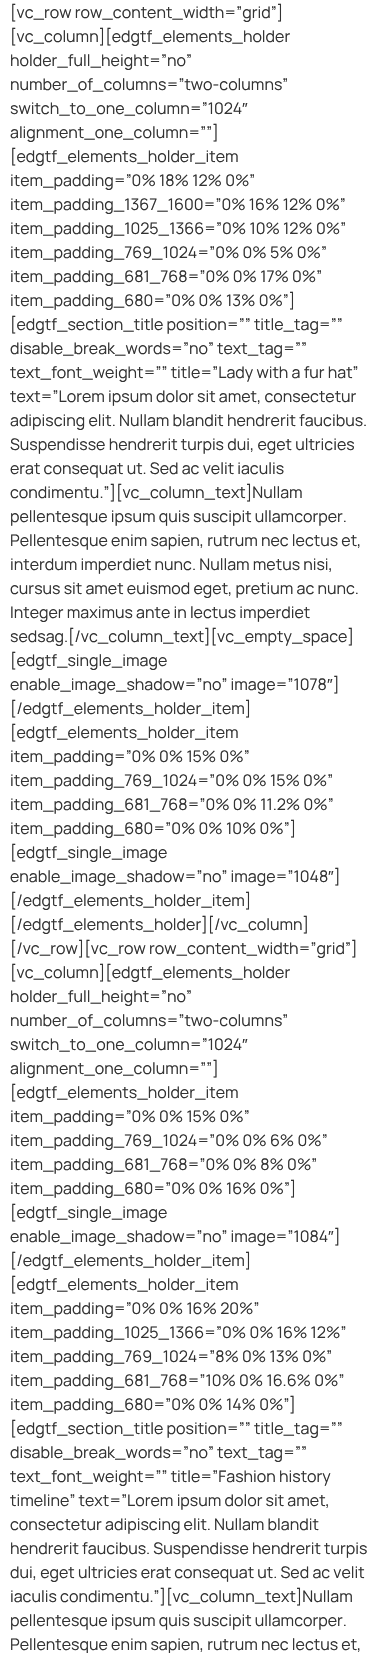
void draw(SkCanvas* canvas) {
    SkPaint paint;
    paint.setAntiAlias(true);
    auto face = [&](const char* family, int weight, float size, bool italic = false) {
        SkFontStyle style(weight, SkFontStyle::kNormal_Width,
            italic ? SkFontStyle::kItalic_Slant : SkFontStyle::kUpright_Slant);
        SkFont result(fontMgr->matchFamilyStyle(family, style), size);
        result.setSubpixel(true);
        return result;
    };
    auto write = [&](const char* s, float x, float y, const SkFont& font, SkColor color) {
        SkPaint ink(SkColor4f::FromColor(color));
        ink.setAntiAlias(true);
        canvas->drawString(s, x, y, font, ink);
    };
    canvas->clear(SK_ColorWHITE);
    auto kFont1 = face("Manrope", 400, 16);
    write("[vc_row row_content_width=”grid”]", 10, 18, kFont1, SkColorSetRGB(51, 51, 51));
    write("[vc_column][edgtf_elements_holder", 10, 42, kFont1, SkColorSetRGB(51, 51, 51));
    write("holder_full_height=”no”", 10, 66, kFont1, SkColorSetRGB(51, 51, 51));
    write("number_of_columns=”two-columns”", 10, 90, kFont1, SkColorSetRGB(51, 51, 51));
    write("switch_to_one_column=”1024", 10, 114, kFont1, SkColorSetRGB(51, 51, 51));
    auto kFont2 = face("Liberation Sans", 400, 16);
    write("″", 242, 114, kFont2, SkColorSetRGB(51, 51, 51));
    write("alignment_one_column=””]", 10, 138, kFont1, SkColorSetRGB(51, 51, 51));
    write("[edgtf_elements_holder_item", 10, 162, kFont1, SkColorSetRGB(51, 51, 51));
    write("item_padding=”0% 18% 12% 0%”", 10, 186, kFont1, SkColorSetRGB(51, 51, 51));
    write("item_padding_1367_1600=”0% 16% 12% 0%”", 10, 210, kFont1, SkColorSetRGB(51, 51, 51));
    write("item_padding_1025_1366=”0% 10% 12% 0%”", 10, 234, kFont1, SkColorSetRGB(51, 51, 51));
    write("item_padding_769_1024=”0% 0% 5% 0%”", 10, 258, kFont1, SkColorSetRGB(51, 51, 51));
    write("item_padding_681_768=”0% 0% 17% 0%”", 10, 282, kFont1, SkColorSetRGB(51, 51, 51));
    write("item_padding_680=”0% 0% 13% 0%”]", 10, 306, kFont1, SkColorSetRGB(51, 51, 51));
    write("[edgtf_section_title position=”” title_tag=””", 10, 330, kFont1, SkColorSetRGB(51, 51, 51));
    write("disable_break_words=”no” text_tag=””", 10, 354, kFont1, SkColorSetRGB(51, 51, 51));
    write("text_font_weight=”” title=”Lady with a fur hat”", 10, 378, kFont1, SkColorSetRGB(51, 51, 51));
    write("text=”Lorem ipsum dolor sit amet, consectetur", 10, 402, kFont1, SkColorSetRGB(51, 51, 51));
    write("adipiscing elit. Nullam blandit hendrerit faucibus.", 10, 426, kFont1, SkColorSetRGB(51, 51, 51));
    write("Suspendisse hendrerit turpis dui, eget ultricies", 10, 450, kFont1, SkColorSetRGB(51, 51, 51));
    write("erat consequat ut. Sed ac velit iaculis", 10, 474, kFont1, SkColorSetRGB(51, 51, 51));
    write("condimentu.”][vc_column_text]Nullam", 10, 498, kFont1, SkColorSetRGB(51, 51, 51));
    write("pellentesque ipsum quis suscipit ullamcorper.", 10, 522, kFont1, SkColorSetRGB(51, 51, 51));
    write("Pellentesque enim sapien, rutrum nec lectus et,", 10, 546, kFont1, SkColorSetRGB(51, 51, 51));
    write("interdum imperdiet nunc. Nullam metus nisi,", 10, 570, kFont1, SkColorSetRGB(51, 51, 51));
    write("cursus sit amet euismod eget, pretium ac nunc.", 10, 594, kFont1, SkColorSetRGB(51, 51, 51));
    write("Integer maximus ante in lectus imperdiet", 10, 618, kFont1, SkColorSetRGB(51, 51, 51));
    write("sedsag.[/vc_column_text][vc_empty_space]", 10, 642, kFont1, SkColorSetRGB(51, 51, 51));
    write("[edgtf_single_image", 10, 666, kFont1, SkColorSetRGB(51, 51, 51));
    write("enable_image_shadow=”no” image=”1078", 10, 690, kFont1, SkColorSetRGB(51, 51, 51));
    write("″", 327, 690, kFont2, SkColorSetRGB(51, 51, 51));
    write("]", 333, 690, kFont1, SkColorSetRGB(51, 51, 51));
    write("[/edgtf_elements_holder_item]", 10, 714, kFont1, SkColorSetRGB(51, 51, 51));
    write("[edgtf_elements_holder_item", 10, 738, kFont1, SkColorSetRGB(51, 51, 51));
    write("item_padding=”0% 0% 15% 0%”", 10, 762, kFont1, SkColorSetRGB(51, 51, 51));
    write("item_padding_769_1024=”0% 0% 15% 0%”", 10, 786, kFont1, SkColorSetRGB(51, 51, 51));
    write("item_padding_681_768=”0% 0% 11.2% 0%”", 10, 810, kFont1, SkColorSetRGB(51, 51, 51));
    write("item_padding_680=”0% 0% 10% 0%”]", 10, 834, kFont1, SkColorSetRGB(51, 51, 51));
    write("[edgtf_single_image", 10, 858, kFont1, SkColorSetRGB(51, 51, 51));
    write("enable_image_shadow=”no” image=”1048", 10, 882, kFont1, SkColorSetRGB(51, 51, 51));
    write("″", 328, 882, kFont2, SkColorSetRGB(51, 51, 51));
    write("]", 334, 882, kFont1, SkColorSetRGB(51, 51, 51));
    write("[/edgtf_elements_holder_item]", 10, 906, kFont1, SkColorSetRGB(51, 51, 51));
    write("[/edgtf_elements_holder][/vc_column]", 10, 930, kFont1, SkColorSetRGB(51, 51, 51));
    write("[/vc_row][vc_row row_content_width=”grid”]", 10, 954, kFont1, SkColorSetRGB(51, 51, 51));
    write("[vc_column][edgtf_elements_holder", 10, 978, kFont1, SkColorSetRGB(51, 51, 51));
    write("holder_full_height=”no”", 10, 1002, kFont1, SkColorSetRGB(51, 51, 51));
    write("number_of_columns=”two-columns”", 10, 1026, kFont1, SkColorSetRGB(51, 51, 51));
    write("switch_to_one_column=”1024", 10, 1050, kFont1, SkColorSetRGB(51, 51, 51));
    write("″", 242, 1050, kFont2, SkColorSetRGB(51, 51, 51));
    write("alignment_one_column=””]", 10, 1074, kFont1, SkColorSetRGB(51, 51, 51));
    write("[edgtf_elements_holder_item", 10, 1098, kFont1, SkColorSetRGB(51, 51, 51));
    write("item_padding=”0% 0% 15% 0%”", 10, 1122, kFont1, SkColorSetRGB(51, 51, 51));
    write("item_padding_769_1024=”0% 0% 6% 0%”", 10, 1146, kFont1, SkColorSetRGB(51, 51, 51));
    write("item_padding_681_768=”0% 0% 8% 0%”", 10, 1170, kFont1, SkColorSetRGB(51, 51, 51));
    write("item_padding_680=”0% 0% 16% 0%”]", 10, 1194, kFont1, SkColorSetRGB(51, 51, 51));
    write("[edgtf_single_image", 10, 1218, kFont1, SkColorSetRGB(51, 51, 51));
    write("enable_image_shadow=”no” image=”1084", 10, 1242, kFont1, SkColorSetRGB(51, 51, 51));
    write("″", 328, 1242, kFont2, SkColorSetRGB(51, 51, 51));
    write("]", 334, 1242, kFont1, SkColorSetRGB(51, 51, 51));
    write("[/edgtf_elements_holder_item]", 10, 1266, kFont1, SkColorSetRGB(51, 51, 51));
    write("[edgtf_elements_holder_item", 10, 1290, kFont1, SkColorSetRGB(51, 51, 51));
    write("item_padding=”0% 0% 16% 20%”", 10, 1314, kFont1, SkColorSetRGB(51, 51, 51));
    write("item_padding_1025_1366=”0% 0% 16% 12%”", 10, 1338, kFont1, SkColorSetRGB(51, 51, 51));
    write("item_padding_769_1024=”8% 0% 13% 0%”", 10, 1362, kFont1, SkColorSetRGB(51, 51, 51));
    write("item_padding_681_768=”10% 0% 16.6% 0%”", 10, 1386, kFont1, SkColorSetRGB(51, 51, 51));
    write("item_padding_680=”0% 0% 14% 0%”]", 10, 1410, kFont1, SkColorSetRGB(51, 51, 51));
    write("[edgtf_section_title position=”” title_tag=””", 10, 1434, kFont1, SkColorSetRGB(51, 51, 51));
    write("disable_break_words=”no” text_tag=””", 10, 1458, kFont1, SkColorSetRGB(51, 51, 51));
    write("text_font_weight=”” title=”Fashion history", 10, 1482, kFont1, SkColorSetRGB(51, 51, 51));
    write("timeline” text=”Lorem ipsum dolor sit amet,", 10, 1506, kFont1, SkColorSetRGB(51, 51, 51));
    write("consectetur adipiscing elit. Nullam blandit", 10, 1530, kFont1, SkColorSetRGB(51, 51, 51));
    write("hendrerit faucibus. Suspendisse hendrerit turpis", 10, 1554, kFont1, SkColorSetRGB(51, 51, 51));
    write("dui, eget ultricies erat consequat ut. Sed ac velit", 10, 1578, kFont1, SkColorSetRGB(51, 51, 51));
    write("iaculis condimentu.”][vc_column_text]Nullam", 10, 1602, kFont1, SkColorSetRGB(51, 51, 51));
    write("pellentesque ipsum quis suscipit ullamcorper.", 10, 1626, kFont1, SkColorSetRGB(51, 51, 51));
    write("Pellentesque enim sapien, rutrum nec lectus et,", 10, 1650, kFont1, SkColorSetRGB(51, 51, 51));
}
